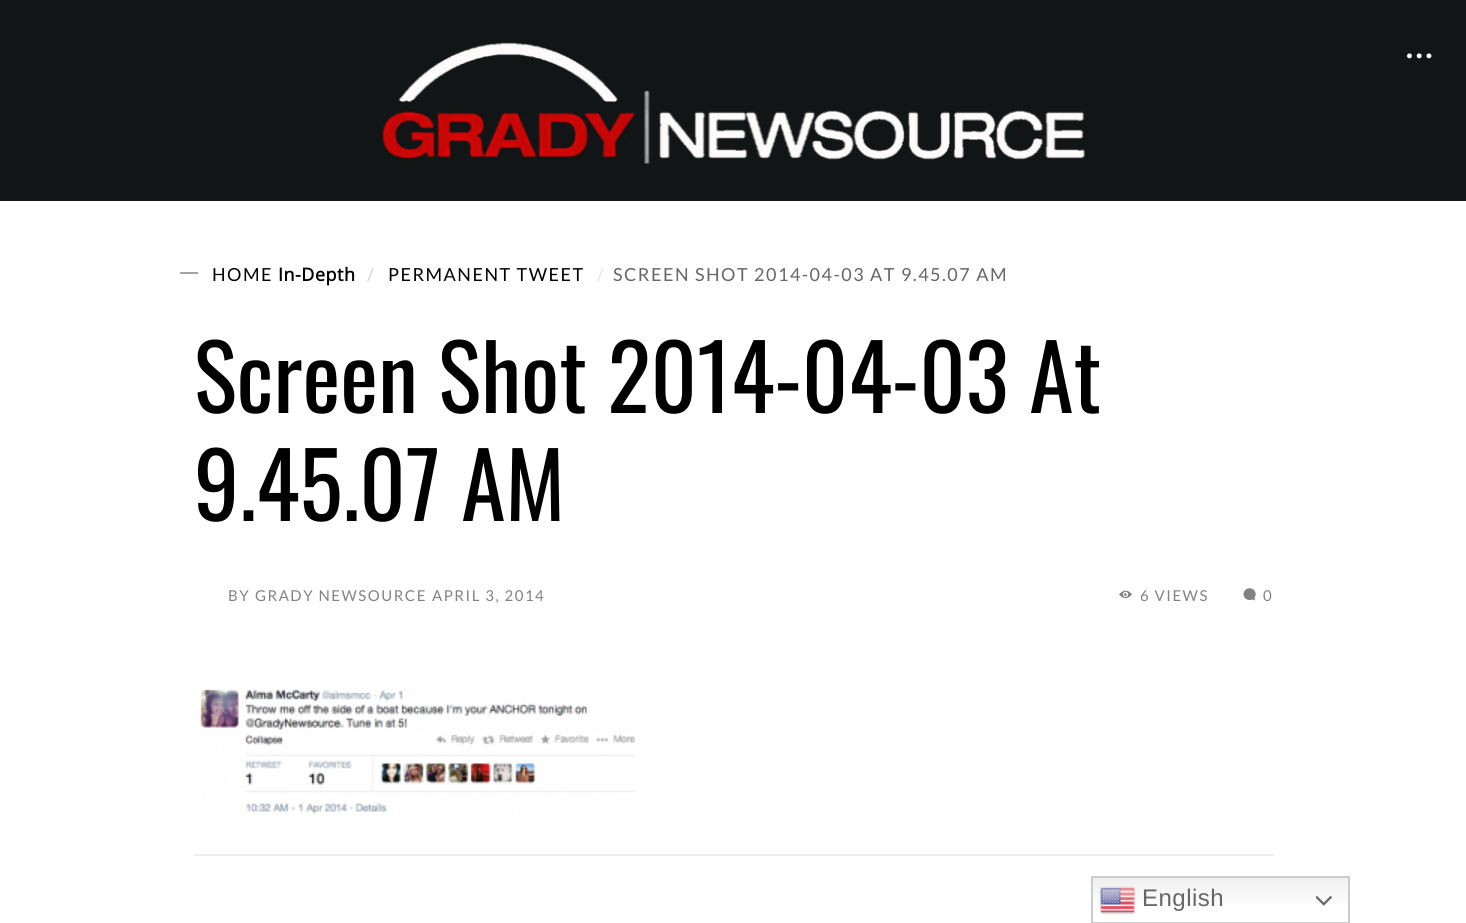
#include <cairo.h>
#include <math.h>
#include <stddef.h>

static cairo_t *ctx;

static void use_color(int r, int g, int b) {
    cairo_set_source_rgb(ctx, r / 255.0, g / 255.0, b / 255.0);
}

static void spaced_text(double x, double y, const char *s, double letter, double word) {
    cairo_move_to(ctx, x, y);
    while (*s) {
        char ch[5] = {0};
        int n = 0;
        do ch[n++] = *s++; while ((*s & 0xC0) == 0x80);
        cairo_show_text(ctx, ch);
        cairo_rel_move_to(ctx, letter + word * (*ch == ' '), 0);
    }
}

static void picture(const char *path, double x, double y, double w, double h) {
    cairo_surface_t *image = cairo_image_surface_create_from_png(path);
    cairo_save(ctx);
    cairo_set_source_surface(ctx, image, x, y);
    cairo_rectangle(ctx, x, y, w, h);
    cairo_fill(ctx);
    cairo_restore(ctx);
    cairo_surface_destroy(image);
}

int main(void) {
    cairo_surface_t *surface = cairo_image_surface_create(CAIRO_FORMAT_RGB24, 1466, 923);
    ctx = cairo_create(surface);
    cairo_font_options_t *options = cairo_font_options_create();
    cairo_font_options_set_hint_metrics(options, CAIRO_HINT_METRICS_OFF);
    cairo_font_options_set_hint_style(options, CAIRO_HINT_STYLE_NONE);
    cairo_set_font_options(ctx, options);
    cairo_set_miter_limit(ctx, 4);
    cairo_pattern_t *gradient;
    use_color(255, 255, 255);
    cairo_paint(ctx);
    use_color(18, 21, 22);
    cairo_rectangle(ctx, 0, 0, 1466, 201);
    cairo_fill(ctx);
    picture("img1.png", 381, 42, 705, 122);
    picture("img2.png", 1407, 53, 25, 6);
    use_color(164, 164, 164);
    cairo_rectangle(ctx, 180, 272, 18, 2);
    cairo_fill(ctx);
    cairo_select_font_face(ctx, "Lato", CAIRO_FONT_SLANT_NORMAL, CAIRO_FONT_WEIGHT_NORMAL);
    cairo_set_font_size(ctx, 18);
    use_color(0, 0, 0);
    spaced_text(212, 281, "HOME", 1.5, 0);
    cairo_select_font_face(ctx, "Open Sans", CAIRO_FONT_SLANT_NORMAL, CAIRO_FONT_WEIGHT_BOLD);
    spaced_text(278, 281, "In-Depth", 0.5, 0);
    cairo_select_font_face(ctx, "Lato", CAIRO_FONT_SLANT_NORMAL, CAIRO_FONT_WEIGHT_NORMAL);
    use_color(210, 210, 210);
    spaced_text(367, 281, "/", 1.5, 0);
    use_color(0, 0, 0);
    spaced_text(388, 281, "PERMANENT TWEET", 1.5, 0);
    use_color(228, 228, 228);
    spaced_text(597, 281, "/", 1.5, 0);
    use_color(102, 102, 102);
    spaced_text(613, 281, "SCREEN SHOT 2014-04-03 AT 9.45.07 AM", 1.5, 0);
    cairo_select_font_face(ctx, "Oswald", CAIRO_FONT_SLANT_NORMAL, CAIRO_FONT_WEIGHT_NORMAL);
    cairo_set_font_size(ctx, 90);
    use_color(0, 0, 0);
    cairo_move_to(ctx, 194, 413);
    cairo_show_text(ctx, "Screen Shot 2014-04-03 At");
    cairo_move_to(ctx, 194, 521);
    cairo_show_text(ctx, "9.45.07 AM");
    cairo_select_font_face(ctx, "Lato", CAIRO_FONT_SLANT_NORMAL, CAIRO_FONT_WEIGHT_NORMAL);
    cairo_set_font_size(ctx, 15);
    use_color(130, 130, 130);
    spaced_text(228, 601, "BY", 1.5, 0);
    spaced_text(255, 601, "GRADY NEWSOURCE", 1.5, 0);
    spaced_text(432, 601, "APRIL 3, 2014", 1.5, 0);
    picture("img3.png", 1119, 590, 13, 9);
    spaced_text(1140, 601, "6 VIEWS", 1.5, 0);
    picture("img4.png", 1243, 588, 13, 13);
    spaced_text(1263, 601, "0", 1.5, 0);
    picture("img5.png", 200, 689, 436, 126);
    use_color(238, 238, 238);
    cairo_rectangle(ctx, 194, 854, 1080, 2);
    cairo_fill(ctx);
    gradient = cairo_pattern_create_linear(1220, 876, 1220, 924);
    cairo_pattern_add_color_stop_rgba(gradient, 0, 0.937, 0.937, 0.937, 1);
    cairo_pattern_add_color_stop_rgba(gradient, 0.7, 1, 1, 1, 1);
    cairo_set_source(ctx, gradient);
    cairo_pattern_destroy(gradient);
    cairo_rectangle(ctx, 1093, 878, 255, 26);
    cairo_fill(ctx);
    cairo_rectangle(ctx, 1092, 877, 257, 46);
    use_color(204, 204, 204);
    cairo_stroke(ctx);
    picture("img6.png", 1099, 886, 37, 29);
    cairo_select_font_face(ctx, "Liberation Sans", CAIRO_FONT_SLANT_NORMAL, CAIRO_FONT_WEIGHT_NORMAL);
    cairo_set_font_size(ctx, 24);
    use_color(102, 102, 102);
    spaced_text(1142, 906, "English", 0.5, 0);
    picture("img7.png", 1316, 896, 16, 10);
    cairo_surface_write_to_png(surface, "result.png");
    cairo_font_options_destroy(options);
    cairo_destroy(ctx);
    cairo_surface_destroy(surface);
    return 0;
}
